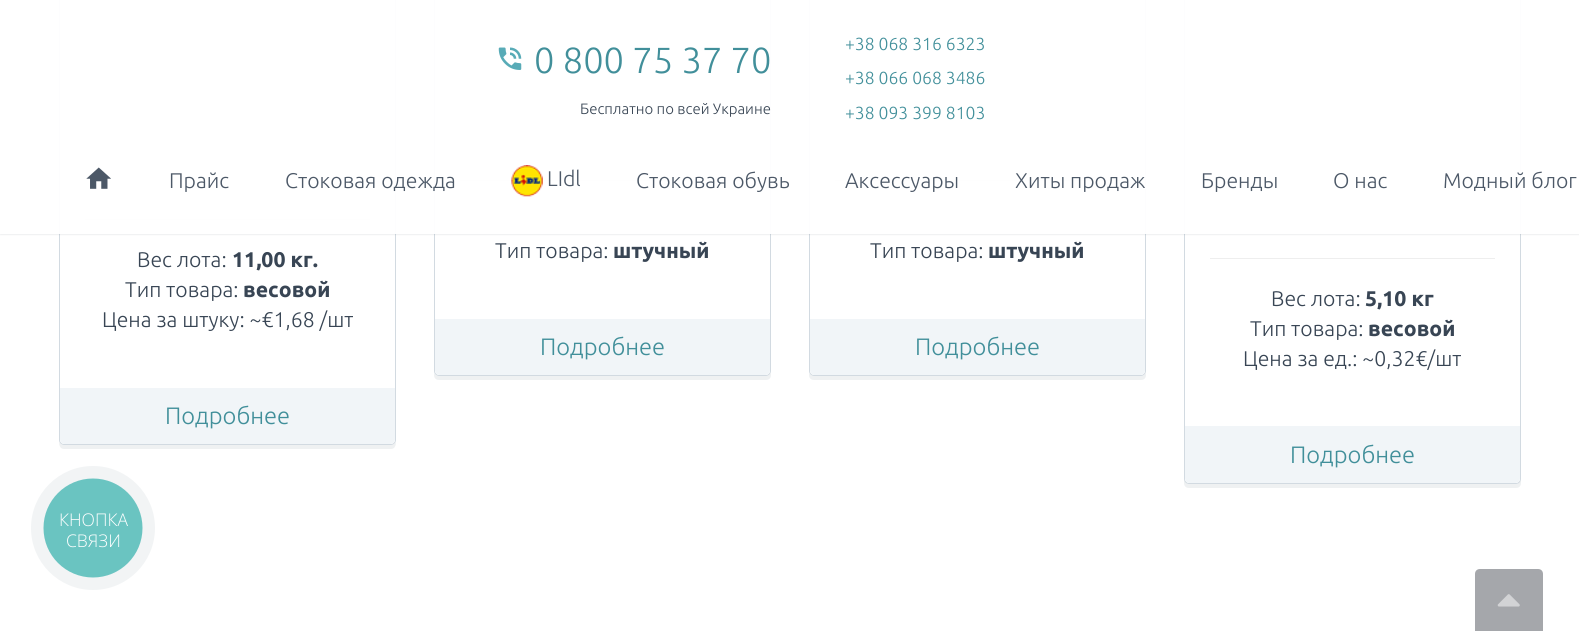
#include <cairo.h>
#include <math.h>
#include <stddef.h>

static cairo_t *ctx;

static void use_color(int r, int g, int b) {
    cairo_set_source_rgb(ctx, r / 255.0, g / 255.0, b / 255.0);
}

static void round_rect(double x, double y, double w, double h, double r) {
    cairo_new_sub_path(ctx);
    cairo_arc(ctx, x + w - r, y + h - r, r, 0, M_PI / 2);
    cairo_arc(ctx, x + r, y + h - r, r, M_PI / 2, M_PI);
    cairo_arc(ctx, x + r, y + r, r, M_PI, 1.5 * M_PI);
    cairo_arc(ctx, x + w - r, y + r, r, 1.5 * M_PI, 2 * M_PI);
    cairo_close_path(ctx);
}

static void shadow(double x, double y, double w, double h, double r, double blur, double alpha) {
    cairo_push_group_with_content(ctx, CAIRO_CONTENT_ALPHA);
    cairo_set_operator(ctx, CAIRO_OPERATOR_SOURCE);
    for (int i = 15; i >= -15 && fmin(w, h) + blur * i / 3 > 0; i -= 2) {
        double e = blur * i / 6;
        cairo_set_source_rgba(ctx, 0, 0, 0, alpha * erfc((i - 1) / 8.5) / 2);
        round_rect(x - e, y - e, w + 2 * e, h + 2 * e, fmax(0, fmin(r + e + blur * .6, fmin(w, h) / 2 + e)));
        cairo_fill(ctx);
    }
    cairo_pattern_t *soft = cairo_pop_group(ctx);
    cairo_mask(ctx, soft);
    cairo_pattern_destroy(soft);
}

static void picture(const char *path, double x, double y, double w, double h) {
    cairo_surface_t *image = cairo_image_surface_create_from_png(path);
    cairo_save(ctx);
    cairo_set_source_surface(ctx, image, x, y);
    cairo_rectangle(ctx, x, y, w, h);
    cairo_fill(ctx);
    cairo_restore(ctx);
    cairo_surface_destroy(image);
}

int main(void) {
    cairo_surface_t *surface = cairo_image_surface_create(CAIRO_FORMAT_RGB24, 1579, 631);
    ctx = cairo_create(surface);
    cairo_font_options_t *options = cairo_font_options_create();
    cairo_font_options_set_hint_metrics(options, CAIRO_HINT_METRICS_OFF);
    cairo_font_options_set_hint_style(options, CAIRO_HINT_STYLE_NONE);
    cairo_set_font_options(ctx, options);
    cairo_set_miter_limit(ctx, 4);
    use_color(255, 255, 255);
    cairo_paint(ctx);
    use_color(239, 241, 242);
    cairo_new_path(ctx);
    cairo_move_to(ctx, 59, 442);
    cairo_curve_to(ctx, 59, 445, 60, 449, 64, 449);
    cairo_line_to(ctx, 391, 449);
    cairo_curve_to(ctx, 395, 449, 396, 445, 396, 442);
    cairo_curve_to(ctx, 395, 444, 393, 445, 391, 445);
    cairo_line_to(ctx, 64, 445);
    cairo_curve_to(ctx, 62, 445, 60, 444, 59, 442);
    cairo_close_path(ctx);
    cairo_fill(ctx);
    use_color(255, 255, 255);
    round_rect(59.5, -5.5, 336, 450, 4.5);
    cairo_fill_preserve(ctx);
    use_color(210, 218, 225);
    cairo_set_line_width(ctx, 1);
    cairo_stroke(ctx);
    use_color(238, 238, 238);
    cairo_rectangle(ctx, 85, 219, 285, 1);
    cairo_fill(ctx);
    use_color(239, 241, 242);
    cairo_new_path(ctx);
    cairo_move_to(ctx, 434, 373);
    cairo_line_to(ctx, 434, 375);
    cairo_curve_to(ctx, 434, 378, 436, 380, 439, 380);
    cairo_line_to(ctx, 766, 380);
    cairo_curve_to(ctx, 769, 380, 771, 378, 771, 375);
    cairo_line_to(ctx, 771, 373);
    cairo_curve_to(ctx, 770, 375, 768, 376, 766, 376);
    cairo_line_to(ctx, 439, 376);
    cairo_curve_to(ctx, 437, 376, 435, 375, 434, 373);
    cairo_close_path(ctx);
    cairo_fill(ctx);
    use_color(255, 255, 255);
    round_rect(434.5, -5.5, 336, 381, 4.5);
    cairo_fill_preserve(ctx);
    use_color(210, 218, 225);
    cairo_stroke(ctx);
    use_color(238, 238, 238);
    cairo_rectangle(ctx, 460, 180, 285, 1);
    cairo_fill(ctx);
    use_color(239, 241, 242);
    cairo_new_path(ctx);
    cairo_move_to(ctx, 809, 373);
    cairo_line_to(ctx, 809, 375);
    cairo_curve_to(ctx, 809, 378, 811, 380, 814, 380);
    cairo_line_to(ctx, 1141, 380);
    cairo_curve_to(ctx, 1144, 380, 1146, 378, 1146, 375);
    cairo_line_to(ctx, 1146, 373);
    cairo_curve_to(ctx, 1145, 375, 1143, 376, 1141, 376);
    cairo_line_to(ctx, 814, 376);
    cairo_curve_to(ctx, 812, 376, 810, 375, 809, 373);
    cairo_close_path(ctx);
    cairo_fill(ctx);
    use_color(255, 255, 255);
    round_rect(809.5, -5.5, 336, 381, 4.5);
    cairo_fill_preserve(ctx);
    use_color(210, 218, 225);
    cairo_stroke(ctx);
    use_color(238, 238, 238);
    cairo_rectangle(ctx, 835, 180, 285, 1);
    cairo_fill(ctx);
    use_color(239, 241, 242);
    cairo_new_path(ctx);
    cairo_move_to(ctx, 1184, 480);
    cairo_line_to(ctx, 1184, 483);
    cairo_curve_to(ctx, 1184, 486, 1186, 488, 1189, 488);
    cairo_line_to(ctx, 1516, 488);
    cairo_curve_to(ctx, 1519, 488, 1521, 486, 1521, 483);
    cairo_line_to(ctx, 1521, 480);
    cairo_curve_to(ctx, 1520, 482, 1518, 484, 1516, 484);
    cairo_line_to(ctx, 1189, 484);
    cairo_curve_to(ctx, 1187, 484, 1185, 482, 1184, 480);
    cairo_close_path(ctx);
    cairo_fill(ctx);
    use_color(255, 255, 255);
    round_rect(1184.5, -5.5, 336, 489, 4.5);
    cairo_fill_preserve(ctx);
    use_color(210, 218, 225);
    cairo_stroke(ctx);
    cairo_save(ctx);
    cairo_set_fill_rule(ctx, CAIRO_FILL_RULE_EVEN_ODD);
    cairo_new_path(ctx);
    cairo_move_to(ctx, 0, 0);
    cairo_line_to(ctx, 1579, 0);
    cairo_line_to(ctx, 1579, 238);
    cairo_line_to(ctx, 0, 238);
    cairo_close_path(ctx);
    cairo_move_to(ctx, 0, 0);
    cairo_line_to(ctx, 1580, 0);
    cairo_line_to(ctx, 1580, 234);
    cairo_line_to(ctx, 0, 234);
    cairo_close_path(ctx);
    cairo_clip(ctx);
    use_color(56, 69, 84);
    shadow(0, 0, 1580, 234, 0, 1, 0.2);
    cairo_restore(ctx);
    cairo_set_source_rgba(ctx, 1, 1, 1, 0.95);
    cairo_rectangle(ctx, 0, 0, 1579, 234);
    cairo_fill(ctx);
    picture("img1.png", 498, 47, 24, 23);
    cairo_select_font_face(ctx, "Ubuntu Light", CAIRO_FONT_SLANT_NORMAL, CAIRO_FONT_WEIGHT_NORMAL);
    cairo_set_font_size(ctx, 36.25);
    use_color(65, 143, 154);
    cairo_move_to(ctx, 534, 73);
    cairo_show_text(ctx, "0 800 75 37 70");
    cairo_set_font_size(ctx, 15);
    use_color(56, 69, 84);
    cairo_move_to(ctx, 580, 114);
    cairo_show_text(ctx, "Бесплатно по всей Украине");
    cairo_set_font_size(ctx, 17.5);
    use_color(65, 143, 154);
    cairo_move_to(ctx, 845, 50);
    cairo_show_text(ctx, "+38 068 316 6323");
    cairo_move_to(ctx, 845, 84);
    cairo_show_text(ctx, "+38 066 068 3486");
    cairo_move_to(ctx, 845, 119);
    cairo_show_text(ctx, "+38 093 399 8103");
    picture("img2.png", 86, 167, 25, 22);
    cairo_set_font_size(ctx, 21.25);
    use_color(76, 88, 103);
    cairo_move_to(ctx, 169, 188);
    cairo_show_text(ctx, "Прайс");
    cairo_move_to(ctx, 285, 188);
    cairo_show_text(ctx, "Стоковая одежда");
    picture("img3.png", 511, 165, 32, 32);
    cairo_move_to(ctx, 547, 186);
    cairo_show_text(ctx, "LIdl");
    cairo_move_to(ctx, 636, 188);
    cairo_show_text(ctx, "Стоковая обувь");
    cairo_move_to(ctx, 845, 188);
    cairo_show_text(ctx, "Аксессуары");
    cairo_move_to(ctx, 1015, 188);
    cairo_show_text(ctx, "Хиты продаж");
    cairo_move_to(ctx, 1201, 188);
    cairo_show_text(ctx, "Бренды");
    cairo_move_to(ctx, 1333, 188);
    cairo_show_text(ctx, "О нас");
    cairo_move_to(ctx, 1443, 188);
    cairo_show_text(ctx, "Модный блог");
    use_color(56, 69, 84);
    cairo_move_to(ctx, 137, 267);
    cairo_show_text(ctx, "Вес лота:");
    cairo_select_font_face(ctx, "Ubuntu", CAIRO_FONT_SLANT_NORMAL, CAIRO_FONT_WEIGHT_BOLD);
    cairo_move_to(ctx, 232, 267);
    cairo_show_text(ctx, "11,00 кг.");
    cairo_select_font_face(ctx, "Ubuntu Light", CAIRO_FONT_SLANT_NORMAL, CAIRO_FONT_WEIGHT_NORMAL);
    cairo_move_to(ctx, 125, 297);
    cairo_show_text(ctx, "Тип товара:");
    cairo_select_font_face(ctx, "Ubuntu", CAIRO_FONT_SLANT_NORMAL, CAIRO_FONT_WEIGHT_BOLD);
    cairo_move_to(ctx, 243, 297);
    cairo_show_text(ctx, "весовой");
    cairo_select_font_face(ctx, "Ubuntu Light", CAIRO_FONT_SLANT_NORMAL, CAIRO_FONT_WEIGHT_NORMAL);
    cairo_move_to(ctx, 102, 327);
    cairo_show_text(ctx, "Цена за штуку: ~€1,68 /шт");
    use_color(241, 245, 248);
    cairo_new_path(ctx);
    cairo_move_to(ctx, 60, 388);
    cairo_line_to(ctx, 395, 388);
    cairo_line_to(ctx, 395, 439);
    cairo_curve_to(ctx, 395, 442, 393, 444, 390, 444);
    cairo_line_to(ctx, 65, 444);
    cairo_curve_to(ctx, 62, 444, 60, 442, 60, 439);
    cairo_close_path(ctx);
    cairo_fill(ctx);
    cairo_set_font_size(ctx, 23.75);
    use_color(65, 143, 154);
    cairo_move_to(ctx, 165, 424);
    cairo_show_text(ctx, "Подробнее");
    cairo_set_font_size(ctx, 21.25);
    use_color(56, 69, 84);
    cairo_move_to(ctx, 495, 258);
    cairo_show_text(ctx, "Тип товара:");
    cairo_select_font_face(ctx, "Ubuntu", CAIRO_FONT_SLANT_NORMAL, CAIRO_FONT_WEIGHT_BOLD);
    cairo_move_to(ctx, 613, 258);
    cairo_show_text(ctx, "штучный");
    use_color(241, 245, 248);
    cairo_new_path(ctx);
    cairo_move_to(ctx, 435, 319);
    cairo_line_to(ctx, 770, 319);
    cairo_line_to(ctx, 770, 370);
    cairo_curve_to(ctx, 770, 373, 768, 375, 765, 375);
    cairo_line_to(ctx, 440, 375);
    cairo_curve_to(ctx, 437, 375, 435, 373, 435, 370);
    cairo_close_path(ctx);
    cairo_fill(ctx);
    cairo_select_font_face(ctx, "Ubuntu Light", CAIRO_FONT_SLANT_NORMAL, CAIRO_FONT_WEIGHT_NORMAL);
    cairo_set_font_size(ctx, 23.75);
    use_color(65, 143, 154);
    cairo_move_to(ctx, 540, 355);
    cairo_show_text(ctx, "Подробнее");
    cairo_set_font_size(ctx, 21.25);
    use_color(56, 69, 84);
    cairo_move_to(ctx, 870, 258);
    cairo_show_text(ctx, "Тип товара:");
    cairo_select_font_face(ctx, "Ubuntu", CAIRO_FONT_SLANT_NORMAL, CAIRO_FONT_WEIGHT_BOLD);
    cairo_move_to(ctx, 988, 258);
    cairo_show_text(ctx, "штучный");
    use_color(241, 245, 248);
    cairo_new_path(ctx);
    cairo_move_to(ctx, 810, 319);
    cairo_line_to(ctx, 1145, 319);
    cairo_line_to(ctx, 1145, 370);
    cairo_curve_to(ctx, 1145, 373, 1143, 375, 1140, 375);
    cairo_line_to(ctx, 815, 375);
    cairo_curve_to(ctx, 812, 375, 810, 373, 810, 370);
    cairo_close_path(ctx);
    cairo_fill(ctx);
    cairo_select_font_face(ctx, "Ubuntu Light", CAIRO_FONT_SLANT_NORMAL, CAIRO_FONT_WEIGHT_NORMAL);
    cairo_set_font_size(ctx, 23.75);
    use_color(65, 143, 154);
    cairo_move_to(ctx, 915, 355);
    cairo_show_text(ctx, "Подробнее");
    use_color(238, 238, 238);
    cairo_rectangle(ctx, 1210, 258, 285, 1);
    cairo_fill(ctx);
    cairo_set_font_size(ctx, 21.25);
    use_color(56, 69, 84);
    cairo_move_to(ctx, 1271, 306);
    cairo_show_text(ctx, "Вес лота:");
    cairo_select_font_face(ctx, "Ubuntu", CAIRO_FONT_SLANT_NORMAL, CAIRO_FONT_WEIGHT_BOLD);
    cairo_move_to(ctx, 1365, 306);
    cairo_show_text(ctx, "5,10 кг");
    cairo_select_font_face(ctx, "Ubuntu Light", CAIRO_FONT_SLANT_NORMAL, CAIRO_FONT_WEIGHT_NORMAL);
    cairo_move_to(ctx, 1250, 336);
    cairo_show_text(ctx, "Тип товара:");
    cairo_select_font_face(ctx, "Ubuntu", CAIRO_FONT_SLANT_NORMAL, CAIRO_FONT_WEIGHT_BOLD);
    cairo_move_to(ctx, 1368, 336);
    cairo_show_text(ctx, "весовой");
    cairo_select_font_face(ctx, "Ubuntu Light", CAIRO_FONT_SLANT_NORMAL, CAIRO_FONT_WEIGHT_NORMAL);
    cairo_move_to(ctx, 1243, 366);
    cairo_show_text(ctx, "Цена за ед.: ~0,32€/шт");
    use_color(241, 245, 248);
    cairo_new_path(ctx);
    cairo_move_to(ctx, 1185, 426);
    cairo_line_to(ctx, 1520, 426);
    cairo_line_to(ctx, 1520, 478);
    cairo_curve_to(ctx, 1520, 481, 1518, 483, 1515, 483);
    cairo_line_to(ctx, 1190, 483);
    cairo_curve_to(ctx, 1187, 483, 1185, 481, 1185, 478);
    cairo_close_path(ctx);
    cairo_fill(ctx);
    cairo_set_font_size(ctx, 23.75);
    use_color(65, 143, 154);
    cairo_move_to(ctx, 1290, 463);
    cairo_show_text(ctx, "Подробнее");
    use_color(165, 167, 171);
    cairo_new_path(ctx);
    cairo_move_to(ctx, 1480, 569);
    cairo_line_to(ctx, 1538, 569);
    cairo_curve_to(ctx, 1541, 569, 1543, 571, 1543, 574);
    cairo_line_to(ctx, 1543, 631);
    cairo_line_to(ctx, 1475, 631);
    cairo_line_to(ctx, 1475, 574);
    cairo_curve_to(ctx, 1475, 571, 1477, 569, 1480, 569);
    cairo_close_path(ctx);
    cairo_fill(ctx);
    picture("img4.png", 1497, 594, 23, 13);
    use_color(242, 244, 245);
    cairo_arc(ctx, 93, 528, 62, 0, 2 * M_PI);
    cairo_fill(ctx);
    use_color(106, 196, 193);
    cairo_arc(ctx, 93, 528, 49.5, 0, 2 * M_PI);
    cairo_fill(ctx);
    cairo_select_font_face(ctx, "Open Sans Light", CAIRO_FONT_SLANT_NORMAL, CAIRO_FONT_WEIGHT_NORMAL);
    cairo_set_font_size(ctx, 17.5);
    use_color(255, 255, 255);
    cairo_move_to(ctx, 59, 526);
    cairo_show_text(ctx, "КНОПКА");
    cairo_move_to(ctx, 66, 547);
    cairo_show_text(ctx, "СВЯЗИ");
    cairo_surface_write_to_png(surface, "result.png");
    cairo_font_options_destroy(options);
    cairo_destroy(ctx);
    cairo_surface_destroy(surface);
    return 0;
}
